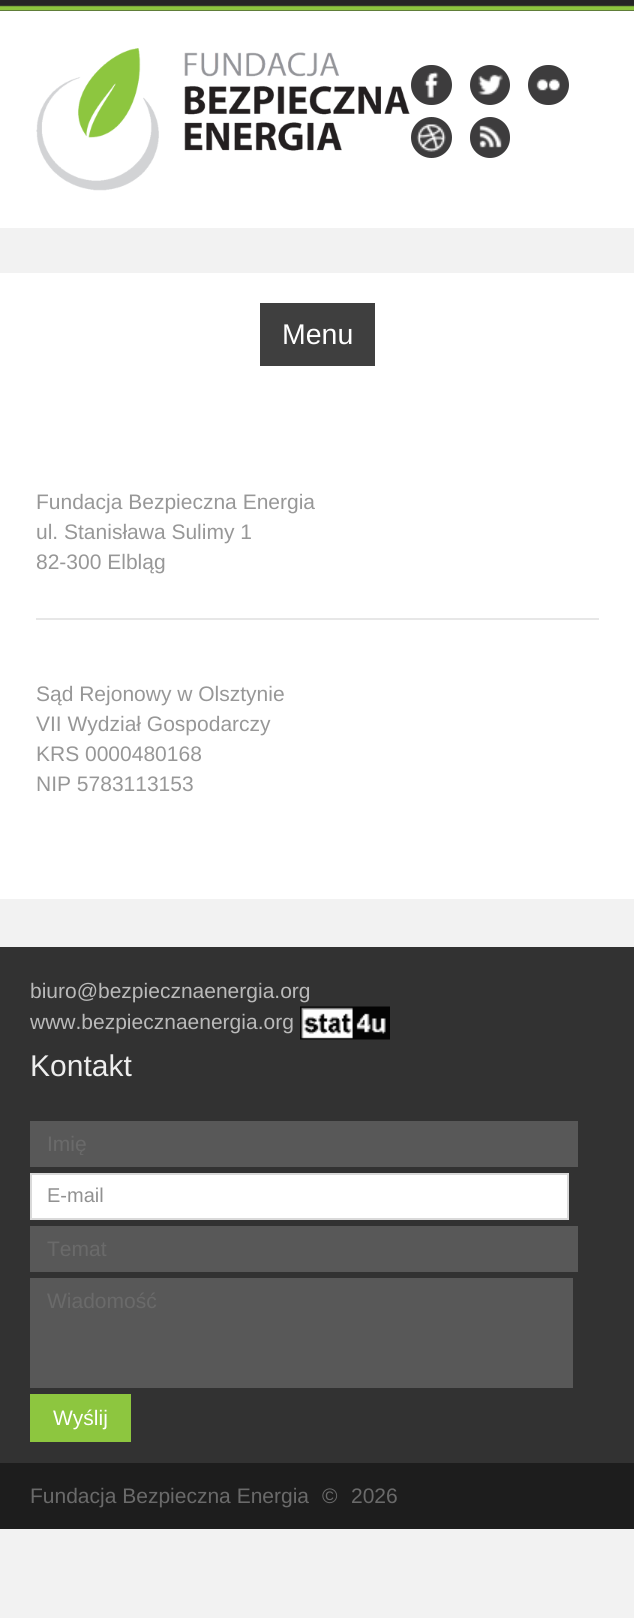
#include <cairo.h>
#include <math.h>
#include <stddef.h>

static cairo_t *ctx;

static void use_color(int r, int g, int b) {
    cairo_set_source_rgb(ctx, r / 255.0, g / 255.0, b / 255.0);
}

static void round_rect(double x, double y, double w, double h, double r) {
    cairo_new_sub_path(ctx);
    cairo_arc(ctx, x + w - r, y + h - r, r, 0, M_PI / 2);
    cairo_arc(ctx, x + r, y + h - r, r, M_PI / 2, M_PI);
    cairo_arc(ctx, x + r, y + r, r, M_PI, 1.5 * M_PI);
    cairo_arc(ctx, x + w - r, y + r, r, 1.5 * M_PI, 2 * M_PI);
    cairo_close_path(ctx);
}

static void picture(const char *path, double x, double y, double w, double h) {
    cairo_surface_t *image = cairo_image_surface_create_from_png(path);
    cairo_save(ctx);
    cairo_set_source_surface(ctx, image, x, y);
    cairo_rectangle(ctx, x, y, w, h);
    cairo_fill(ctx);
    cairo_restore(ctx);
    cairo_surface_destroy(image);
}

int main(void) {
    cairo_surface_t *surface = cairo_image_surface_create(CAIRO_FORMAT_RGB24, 634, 1618);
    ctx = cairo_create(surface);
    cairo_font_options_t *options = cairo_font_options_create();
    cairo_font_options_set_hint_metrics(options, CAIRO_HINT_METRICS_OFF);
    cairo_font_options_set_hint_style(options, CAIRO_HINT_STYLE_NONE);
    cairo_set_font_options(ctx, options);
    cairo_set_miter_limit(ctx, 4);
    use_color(242, 242, 242);
    cairo_paint(ctx);
    picture("img1.png", 0, 0, 634, 11);
    use_color(255, 255, 255);
    cairo_rectangle(ctx, 0, 11, 634, 217);
    cairo_fill(ctx);
    picture("img2.png", 36, 48, 374, 143);
    use_color(61, 60, 61);
    round_rect(411, 65, 41, 40, 20);
    cairo_fill(ctx);
    picture("img3.png", 424, 71, 15, 27);
    cairo_arc(ctx, 490, 85, 20, 0, 2 * M_PI);
    cairo_fill(ctx);
    picture("img4.png", 478, 74, 25, 21);
    round_rect(528, 65, 41, 40, 20);
    cairo_fill(ctx);
    picture("img5.png", 536, 79, 24, 12);
    cairo_arc(ctx, 431.5, 137.5, 20.5, 0, 2 * M_PI);
    cairo_fill(ctx);
    picture("img6.png", 416, 124, 30, 28);
    round_rect(470, 117, 40, 41, 20);
    cairo_fill(ctx);
    picture("img7.png", 479, 125, 23, 23);
    use_color(255, 255, 255);
    cairo_rectangle(ctx, 0, 273, 634, 626);
    cairo_fill(ctx);
    use_color(63, 63, 63);
    cairo_rectangle(ctx, 260, 303, 115, 63);
    cairo_fill(ctx);
    cairo_select_font_face(ctx, "Liberation Sans", CAIRO_FONT_SLANT_NORMAL, CAIRO_FONT_WEIGHT_NORMAL);
    cairo_set_font_size(ctx, 28.5);
    use_color(255, 255, 255);
    cairo_move_to(ctx, 282, 344);
    cairo_show_text(ctx, "Menu");
    use_color(231, 231, 231);
    cairo_rectangle(ctx, 36, 618, 563, 2);
    cairo_fill(ctx);
    cairo_set_font_size(ctx, 21);
    use_color(151, 151, 151);
    cairo_move_to(ctx, 36, 509);
    cairo_show_text(ctx, "Fundacja Bezpieczna Energia");
    cairo_move_to(ctx, 36, 539);
    cairo_show_text(ctx, "ul. Stanisława Sulimy 1");
    cairo_move_to(ctx, 36, 569);
    cairo_show_text(ctx, "82-300 Elbląg");
    cairo_move_to(ctx, 36, 701);
    cairo_show_text(ctx, "Sąd Rejonowy w Olsztynie");
    cairo_move_to(ctx, 36, 731);
    cairo_show_text(ctx, "VII Wydział Gospodarczy");
    cairo_move_to(ctx, 36, 761);
    cairo_show_text(ctx, "KRS 0000480168");
    cairo_move_to(ctx, 36, 791);
    cairo_show_text(ctx, "NIP 5783113153");
    use_color(29, 29, 29);
    cairo_rectangle(ctx, 0, 1463, 634, 66);
    cairo_fill(ctx);
    use_color(50, 50, 50);
    cairo_rectangle(ctx, 0, 947, 634, 516);
    cairo_fill(ctx);
    use_color(186, 186, 186);
    cairo_move_to(ctx, 30, 998);
    cairo_show_text(ctx, "biuro@bezpiecznaenergia.org");
    cairo_move_to(ctx, 30, 1029);
    cairo_show_text(ctx, "www.bezpiecznaenergia.org");
    picture("img8.png", 300, 1006, 90, 34);
    cairo_set_font_size(ctx, 30);
    use_color(237, 237, 237);
    cairo_move_to(ctx, 30, 1076);
    cairo_show_text(ctx, "Kontakt");
    use_color(88, 88, 88);
    cairo_rectangle(ctx, 30, 1121, 548, 46);
    cairo_fill(ctx);
    cairo_save(ctx);
    cairo_rectangle(ctx, 47, 1131, 514, 24);
    cairo_clip(ctx);
    cairo_set_font_size(ctx, 21);
    use_color(106, 106, 106);
    cairo_move_to(ctx, 47, 1151);
    cairo_show_text(ctx, "Imię");
    cairo_restore(ctx);
    use_color(255, 255, 255);
    cairo_rectangle(ctx, 31, 1174, 537, 45);
    cairo_fill_preserve(ctx);
    use_color(217, 217, 217);
    cairo_stroke(ctx);
    cairo_set_font_size(ctx, 20);
    use_color(145, 145, 145);
    cairo_move_to(ctx, 47, 1202);
    cairo_show_text(ctx, "E-mail");
    use_color(88, 88, 88);
    cairo_rectangle(ctx, 30, 1226, 548, 46);
    cairo_fill(ctx);
    cairo_set_font_size(ctx, 21);
    use_color(106, 106, 106);
    cairo_move_to(ctx, 47, 1256);
    cairo_show_text(ctx, "Temat");
    use_color(88, 88, 88);
    cairo_rectangle(ctx, 30, 1278, 543, 110);
    cairo_fill(ctx);
    use_color(106, 106, 106);
    cairo_move_to(ctx, 47, 1308);
    cairo_show_text(ctx, "Wiadomość");
    use_color(141, 198, 63);
    cairo_rectangle(ctx, 30, 1394, 101, 48);
    cairo_fill(ctx);
    use_color(255, 255, 255);
    cairo_move_to(ctx, 53, 1425);
    cairo_show_text(ctx, "Wyślij");
    use_color(106, 106, 106);
    cairo_move_to(ctx, 30, 1503);
    cairo_show_text(ctx, "Fundacja Bezpieczna Energia");
    cairo_move_to(ctx, 322, 1503);
    cairo_show_text(ctx, "©");
    cairo_move_to(ctx, 351, 1503);
    cairo_show_text(ctx, "2026");
    cairo_surface_write_to_png(surface, "result.png");
    cairo_font_options_destroy(options);
    cairo_destroy(ctx);
    cairo_surface_destroy(surface);
    return 0;
}
